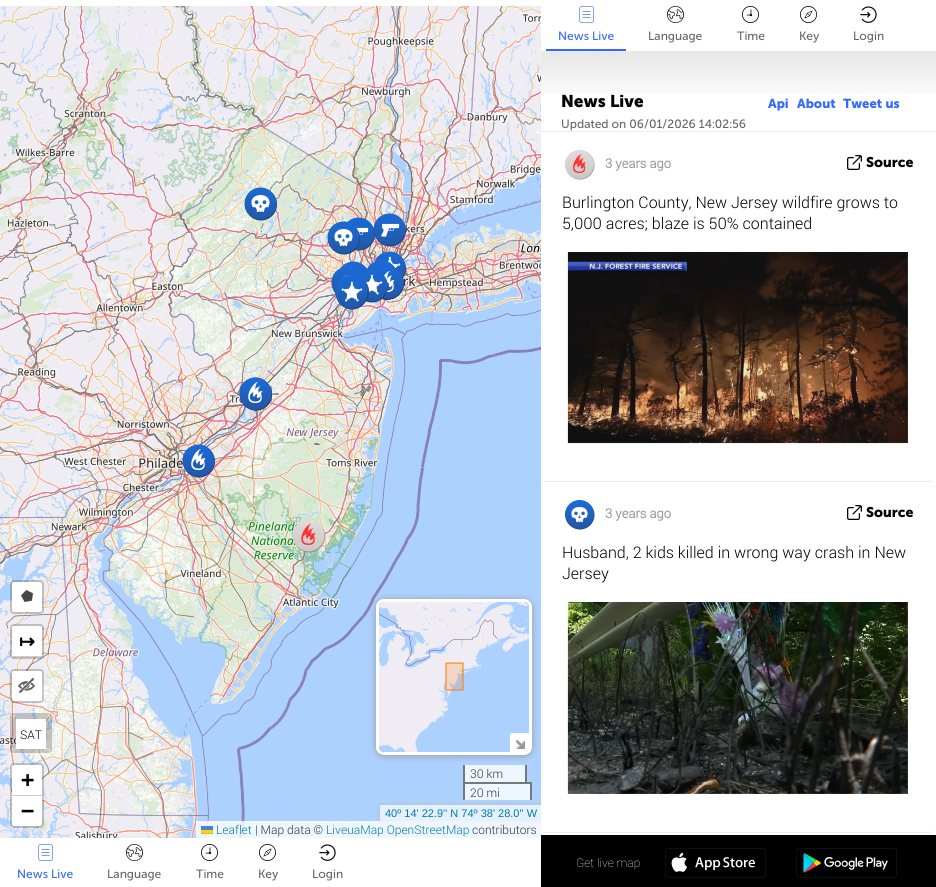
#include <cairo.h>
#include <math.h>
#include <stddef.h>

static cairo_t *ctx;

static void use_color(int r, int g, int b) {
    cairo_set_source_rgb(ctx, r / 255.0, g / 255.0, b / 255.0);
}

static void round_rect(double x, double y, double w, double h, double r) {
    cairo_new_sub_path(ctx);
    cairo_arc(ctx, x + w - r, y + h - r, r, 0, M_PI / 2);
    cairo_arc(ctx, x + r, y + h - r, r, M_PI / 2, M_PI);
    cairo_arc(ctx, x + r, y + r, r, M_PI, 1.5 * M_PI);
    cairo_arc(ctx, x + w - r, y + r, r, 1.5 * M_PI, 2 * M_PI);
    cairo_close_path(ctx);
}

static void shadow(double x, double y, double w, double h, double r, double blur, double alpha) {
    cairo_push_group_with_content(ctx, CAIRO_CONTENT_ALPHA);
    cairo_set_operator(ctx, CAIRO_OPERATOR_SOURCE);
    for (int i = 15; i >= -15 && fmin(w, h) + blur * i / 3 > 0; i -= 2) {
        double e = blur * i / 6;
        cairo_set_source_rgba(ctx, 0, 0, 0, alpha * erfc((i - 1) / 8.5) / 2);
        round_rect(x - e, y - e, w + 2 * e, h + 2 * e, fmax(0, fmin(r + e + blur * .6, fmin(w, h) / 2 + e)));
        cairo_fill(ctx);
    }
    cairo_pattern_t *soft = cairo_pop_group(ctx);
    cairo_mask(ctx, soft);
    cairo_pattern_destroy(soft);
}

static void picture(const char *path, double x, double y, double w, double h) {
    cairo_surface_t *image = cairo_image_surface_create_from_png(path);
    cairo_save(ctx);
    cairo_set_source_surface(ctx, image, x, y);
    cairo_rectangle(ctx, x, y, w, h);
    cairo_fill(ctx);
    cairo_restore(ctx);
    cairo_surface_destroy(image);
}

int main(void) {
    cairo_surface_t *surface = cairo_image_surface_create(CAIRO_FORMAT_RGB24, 936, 887);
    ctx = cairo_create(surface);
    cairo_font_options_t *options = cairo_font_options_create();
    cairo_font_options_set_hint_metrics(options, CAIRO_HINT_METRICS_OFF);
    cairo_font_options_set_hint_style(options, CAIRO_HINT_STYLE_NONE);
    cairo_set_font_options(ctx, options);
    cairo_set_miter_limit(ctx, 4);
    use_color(255, 255, 255);
    cairo_paint(ctx);
    picture("img1.png", 0, 6, 35, 211);
    picture("img2.png", 35, 6, 256, 211);
    picture("img3.png", 291, 6, 250, 211);
    picture("img4.png", 0, 217, 35, 256);
    picture("img5.png", 35, 217, 256, 256);
    picture("img6.png", 291, 217, 250, 256);
    picture("img7.png", 0, 473, 35, 256);
    picture("img8.png", 35, 473, 256, 256);
    picture("img9.png", 291, 473, 250, 256);
    picture("img10.png", 0, 729, 35, 109);
    picture("img11.png", 35, 729, 256, 109);
    use_color(172, 209, 255);
    cairo_rectangle(ctx, 291, 729, 250, 109);
    cairo_fill(ctx);
    use_color(238, 246, 255);
    cairo_rectangle(ctx, 465, 784, 65, 16);
    cairo_fill(ctx);
    picture("img12.png", 244, 187, 33, 34);
    picture("img15.png", 373, 213, 33, 34);
    picture("img14.png", 347, 217, 28, 34);
    picture("img13.png", 327, 221, 33, 34);
    picture("img16.png", 374, 251, 32, 27);
    picture("img18.png", 367, 260, 29, 10);
    picture("img20.png", 367, 262, 29, 9);
    picture("img17.png", 340, 261, 28, 10);
    picture("img19.png", 343, 265, 24, 7);
    picture("img21.png", 331, 267, 27, 27);
    picture("img22.png", 375, 266, 26, 34);
    picture("img23.png", 375, 267, 26, 33);
    picture("img26.png", 376, 267, 28, 33);
    picture("img24.png", 375, 267, 26, 33);
    picture("img25.png", 375, 267, 26, 33);
    picture("img33.png", 363, 271, 2, 1);
    picture("img30.png", 339, 270, 26, 3);
    picture("img31.png", 339, 271, 26, 2);
    picture("img32.png", 339, 271, 26, 2);
    picture("img27.png", 335, 269, 28, 21);
    picture("img29.png", 376, 268, 28, 32);
    picture("img34.png", 336, 272, 27, 17);
    picture("img28.png", 358, 269, 30, 34);
    picture("img35.png", 336, 274, 33, 29);
    picture("img36.png", 335, 279, 33, 31);
    picture("img41.png", 270, 386, 9, 16);
    picture("img37.png", 239, 377, 33, 34);
    picture("img38.png", 239, 377, 33, 34);
    picture("img39.png", 182, 444, 33, 34);
    picture("img40.png", 292, 519, 33, 34);
    round_rect(11, 581, 32, 32, 3);
    cairo_set_source_rgba(ctx, 0, 0, 0, 0.2);
    cairo_stroke(ctx);
    use_color(255, 255, 255);
    round_rect(12, 582, 30, 30, 2);
    cairo_fill(ctx);
    picture("img42.png", 21, 590, 12, 12);
    round_rect(11, 625, 32, 33, 3);
    cairo_set_source_rgba(ctx, 0, 0, 0, 0.2);
    cairo_stroke(ctx);
    use_color(255, 255, 255);
    cairo_new_path(ctx);
    cairo_move_to(ctx, 14, 626);
    cairo_line_to(ctx, 40, 626);
    cairo_curve_to(ctx, 41, 626, 42, 627, 42, 628);
    cairo_line_to(ctx, 42, 657);
    cairo_line_to(ctx, 12, 657);
    cairo_line_to(ctx, 12, 628);
    cairo_curve_to(ctx, 12, 627, 13, 626, 14, 626);
    cairo_close_path(ctx);
    cairo_fill(ctx);
    use_color(204, 204, 204);
    cairo_rectangle(ctx, 12, 656, 30, 1);
    cairo_fill(ctx);
    cairo_select_font_face(ctx, "DejaVu Sans", CAIRO_FONT_SLANT_NORMAL, CAIRO_FONT_WEIGHT_BOLD);
    cairo_set_font_size(ctx, 19);
    use_color(0, 0, 0);
    cairo_move_to(ctx, 19, 648);
    cairo_show_text(ctx, "↦");
    round_rect(11, 670, 32, 32, 3);
    cairo_set_source_rgba(ctx, 0, 0, 0, 0.2);
    cairo_stroke(ctx);
    use_color(255, 255, 255);
    round_rect(12, 671, 30, 30, 2);
    cairo_fill(ctx);
    picture("img43.png", 18, 678, 17, 15);
    round_rect(11, 714, 40, 38, 3);
    cairo_set_source_rgba(ctx, 0, 0, 0, 0.2);
    cairo_stroke(ctx);
    round_rect(13, 716, 36, 34, 3);
    cairo_stroke(ctx);
    use_color(255, 255, 255);
    cairo_new_path(ctx);
    cairo_move_to(ctx, 16, 719);
    cairo_line_to(ctx, 46, 719);
    cairo_line_to(ctx, 46, 749);
    cairo_line_to(ctx, 16, 749);
    cairo_line_to(ctx, 16, 747);
    cairo_close_path(ctx);
    cairo_fill(ctx);
    cairo_set_source_rgba(ctx, 0, 0, 0, 0.2);
    cairo_rectangle(ctx, 15, 717, 32, 2);
    cairo_fill(ctx);
    cairo_rectangle(ctx, 46, 718, 2, 30);
    cairo_fill(ctx);
    cairo_rectangle(ctx, 14, 718, 2, 30);
    cairo_fill(ctx);
    cairo_select_font_face(ctx, "Roboto Light", CAIRO_FONT_SLANT_NORMAL, CAIRO_FONT_WEIGHT_NORMAL);
    cairo_set_font_size(ctx, 12);
    use_color(0, 0, 0);
    cairo_move_to(ctx, 20, 739);
    cairo_show_text(ctx, "SAT");
    round_rect(11, 764, 32, 63, 3);
    cairo_set_source_rgba(ctx, 0, 0, 0, 0.2);
    cairo_stroke(ctx);
    use_color(255, 255, 255);
    cairo_new_path(ctx);
    cairo_move_to(ctx, 14, 765);
    cairo_line_to(ctx, 40, 765);
    cairo_curve_to(ctx, 41, 765, 42, 766, 42, 767);
    cairo_line_to(ctx, 42, 796);
    cairo_line_to(ctx, 12, 796);
    cairo_line_to(ctx, 12, 767);
    cairo_curve_to(ctx, 12, 766, 13, 765, 14, 765);
    cairo_close_path(ctx);
    cairo_fill(ctx);
    use_color(204, 204, 204);
    cairo_rectangle(ctx, 12, 795, 30, 1);
    cairo_fill(ctx);
    cairo_select_font_face(ctx, "DejaVu Sans Mono", CAIRO_FONT_SLANT_NORMAL, CAIRO_FONT_WEIGHT_BOLD);
    cairo_set_font_size(ctx, 22);
    use_color(0, 0, 0);
    cairo_move_to(ctx, 21, 787);
    cairo_show_text(ctx, "+");
    use_color(255, 255, 255);
    cairo_new_path(ctx);
    cairo_move_to(ctx, 12, 796);
    cairo_line_to(ctx, 42, 796);
    cairo_line_to(ctx, 42, 824);
    cairo_curve_to(ctx, 42, 825, 41, 826, 40, 826);
    cairo_line_to(ctx, 14, 826);
    cairo_curve_to(ctx, 13, 826, 12, 825, 12, 824);
    cairo_close_path(ctx);
    cairo_fill(ctx);
    use_color(0, 0, 0);
    cairo_move_to(ctx, 21, 818);
    cairo_show_text(ctx, "−");
    use_color(153, 153, 153);
    shadow(376, 600, 156, 156, 8, 3.5, 1);
    round_rect(377.5, 600.5, 153, 153, 6.5);
    use_color(255, 255, 255);
    cairo_set_line_width(ctx, 3);
    cairo_stroke(ctx);
    picture("img44.png", 379, 602, 150, 69);
    picture("img45.png", 379, 671, 150, 81);
    cairo_set_source_rgba(ctx, 1, 0.471, 0, 0.2);
    cairo_rectangle(ctx, 446, 663, 17, 27);
    cairo_fill(ctx);
    cairo_new_path(ctx);
    cairo_move_to(ctx, 446, 690);
    cairo_line_to(ctx, 446, 663);
    cairo_line_to(ctx, 463, 663);
    cairo_line_to(ctx, 463, 690);
    cairo_close_path(ctx);
    use_color(255, 120, 0);
    cairo_set_line_width(ctx, 1);
    cairo_set_line_cap(ctx, CAIRO_LINE_CAP_ROUND);
    cairo_set_line_join(ctx, CAIRO_LINE_JOIN_ROUND);
    cairo_stroke(ctx);
    use_color(255, 255, 255);
    cairo_new_path(ctx);
    cairo_move_to(ctx, 512, 733);
    cairo_line_to(ctx, 529, 733);
    cairo_line_to(ctx, 529, 747);
    cairo_curve_to(ctx, 529, 750, 527, 752, 524, 752);
    cairo_line_to(ctx, 510, 752);
    cairo_line_to(ctx, 510, 735);
    cairo_curve_to(ctx, 510, 734, 511, 733, 512, 733);
    cairo_close_path(ctx);
    cairo_fill(ctx);
    picture("img46.png", 516, 739, 9, 10);
    use_color(238, 246, 255);
    cairo_rectangle(ctx, 465, 765, 60, 17);
    cairo_fill(ctx);
    use_color(119, 119, 119);
    cairo_rectangle(ctx, 525, 765, 2, 19);
    cairo_fill(ctx);
    cairo_rectangle(ctx, 463, 765, 2, 19);
    cairo_fill(ctx);
    cairo_select_font_face(ctx, "Roboto Light", CAIRO_FONT_SLANT_NORMAL, CAIRO_FONT_WEIGHT_NORMAL);
    cairo_set_font_size(ctx, 12);
    use_color(51, 51, 51);
    cairo_move_to(ctx, 470, 778);
    cairo_show_text(ctx, "30 km");
    use_color(119, 119, 119);
    cairo_rectangle(ctx, 463, 782, 69, 2);
    cairo_fill(ctx);
    cairo_rectangle(ctx, 530, 782, 2, 18);
    cairo_fill(ctx);
    cairo_rectangle(ctx, 463, 782, 2, 18);
    cairo_fill(ctx);
    use_color(51, 51, 51);
    cairo_move_to(ctx, 470, 797);
    cairo_show_text(ctx, "20 mi");
    use_color(187, 187, 187);
    shadow(380, 805, 162, 16, 0, 2.5, 1);
    use_color(230, 241, 255);
    cairo_rectangle(ctx, 380, 805, 161, 16);
    cairo_fill(ctx);
    cairo_select_font_face(ctx, "Liberation Sans", CAIRO_FONT_SLANT_NORMAL, CAIRO_FONT_WEIGHT_NORMAL);
    cairo_set_font_size(ctx, 11);
    use_color(0, 120, 168);
    cairo_move_to(ctx, 385, 817);
    cairo_show_text(ctx, "40º 14' 22.9'' N 74º 38' 28.0'' W");
    cairo_set_source_rgba(ctx, 1, 1, 1, 0.8);
    cairo_rectangle(ctx, 196, 821, 345, 17);
    cairo_fill(ctx);
    cairo_select_font_face(ctx, "Roboto Light", CAIRO_FONT_SLANT_NORMAL, CAIRO_FONT_WEIGHT_NORMAL);
    cairo_set_font_size(ctx, 12);
    use_color(0, 120, 168);
    cairo_move_to(ctx, 216, 834);
    cairo_show_text(ctx, "Leaflet");
    use_color(76, 123, 225);
    cairo_rectangle(ctx, 201, 826, 12, 4);
    cairo_fill(ctx);
    use_color(255, 213, 0);
    cairo_rectangle(ctx, 201, 830, 12, 3);
    cairo_fill(ctx);
    use_color(224, 188, 0);
    cairo_rectangle(ctx, 201, 833, 12, 1);
    cairo_fill(ctx);
    use_color(51, 51, 51);
    cairo_move_to(ctx, 255, 834);
    cairo_show_text(ctx, "| Map data ©");
    use_color(0, 120, 168);
    cairo_move_to(ctx, 326, 834);
    cairo_show_text(ctx, "LiveuaMap OpenStreetMap");
    use_color(51, 51, 51);
    cairo_move_to(ctx, 472, 834);
    cairo_show_text(ctx, "contributors");
    use_color(255, 255, 255);
    cairo_rectangle(ctx, 541, 801, 5, 24);
    cairo_fill(ctx);
    use_color(52, 106, 254);
    cairo_rectangle(ctx, 546, 49, 80, 2);
    cairo_fill(ctx);
    picture("img47.png", 579, 6, 15, 17);
    cairo_select_font_face(ctx, "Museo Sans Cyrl", CAIRO_FONT_SLANT_NORMAL, CAIRO_FONT_WEIGHT_NORMAL);
    cairo_move_to(ctx, 558, 40);
    cairo_show_text(ctx, "News Live");
    picture("img48.png", 667, 6, 17, 17);
    use_color(102, 102, 102);
    cairo_move_to(ctx, 648, 40);
    cairo_show_text(ctx, "Language");
    picture("img49.png", 742, 6, 17, 17);
    cairo_move_to(ctx, 737, 40);
    cairo_show_text(ctx, "Time");
    picture("img50.png", 800, 6, 17, 17);
    cairo_move_to(ctx, 799, 40);
    cairo_show_text(ctx, "Key");
    picture("img51.png", 860, 6, 17, 17);
    cairo_move_to(ctx, 853, 40);
    cairo_show_text(ctx, "Login");
    picture("img52.png", 541, 51, 395, 43);
    use_color(237, 237, 237);
    cairo_rectangle(ctx, 541, 131, 395, 1);
    cairo_fill(ctx);
    cairo_select_font_face(ctx, "Museo Sans Cyrl", CAIRO_FONT_SLANT_NORMAL, CAIRO_FONT_WEIGHT_BOLD);
    cairo_set_font_size(ctx, 17);
    use_color(0, 0, 0);
    cairo_move_to(ctx, 561, 107);
    cairo_show_text(ctx, "News Live");
    cairo_select_font_face(ctx, "Museo Sans Cyrl", CAIRO_FONT_SLANT_NORMAL, CAIRO_FONT_WEIGHT_NORMAL);
    cairo_set_font_size(ctx, 12);
    use_color(102, 102, 102);
    cairo_move_to(ctx, 561, 128);
    cairo_show_text(ctx, "Updated on 06/01/2026 14:02:56");
    cairo_select_font_face(ctx, "Museo Sans Cyrl", CAIRO_FONT_SLANT_NORMAL, CAIRO_FONT_WEIGHT_BOLD);
    cairo_set_font_size(ctx, 13);
    use_color(52, 106, 254);
    cairo_move_to(ctx, 768, 108);
    cairo_show_text(ctx, "Api");
    cairo_move_to(ctx, 797, 108);
    cairo_show_text(ctx, "About");
    cairo_move_to(ctx, 843, 108);
    cairo_show_text(ctx, "Tweet us");
    use_color(236, 236, 236);
    cairo_new_path(ctx);
    cairo_move_to(ctx, 930, 482);
    cairo_curve_to(ctx, 932, 482, 933, 481, 933, 479);
    cairo_curve_to(ctx, 933, 480, 932, 481, 930, 481);
    cairo_line_to(ctx, 544, 481);
    cairo_line_to(ctx, 542, 482);
    cairo_line_to(ctx, 544, 482);
    cairo_close_path(ctx);
    cairo_fill(ctx);
    picture("img53.png", 565, 150, 30, 30);
    cairo_select_font_face(ctx, "Roboto", CAIRO_FONT_SLANT_NORMAL, CAIRO_FONT_WEIGHT_BOLD);
    use_color(153, 153, 153);
    cairo_move_to(ctx, 605, 168);
    cairo_show_text(ctx, "3 years ago");
    picture("img54.png", 847, 155, 15, 15);
    cairo_select_font_face(ctx, "Museo Sans Cyrl", CAIRO_FONT_SLANT_NORMAL, CAIRO_FONT_WEIGHT_BOLD);
    cairo_set_font_size(ctx, 14);
    use_color(0, 0, 0);
    cairo_move_to(ctx, 866, 167);
    cairo_show_text(ctx, "Source");
    cairo_select_font_face(ctx, "Roboto Light", CAIRO_FONT_SLANT_NORMAL, CAIRO_FONT_WEIGHT_NORMAL);
    cairo_set_font_size(ctx, 16);
    cairo_move_to(ctx, 562, 208);
    cairo_show_text(ctx, "Burlington County, New Jersey wildfire grows to");
    cairo_move_to(ctx, 562, 229);
    cairo_show_text(ctx, "5,000 acres; blaze is 50% contained");
    picture("img55.png", 567, 252, 341, 192);
    use_color(236, 236, 236);
    cairo_new_path(ctx);
    cairo_move_to(ctx, 930, 833);
    cairo_curve_to(ctx, 932, 833, 933, 832, 933, 830);
    cairo_curve_to(ctx, 933, 831, 932, 832, 930, 832);
    cairo_line_to(ctx, 544, 832);
    cairo_line_to(ctx, 542, 833);
    cairo_line_to(ctx, 544, 833);
    cairo_close_path(ctx);
    cairo_fill(ctx);
    picture("img56.png", 565, 500, 30, 30);
    cairo_select_font_face(ctx, "Roboto", CAIRO_FONT_SLANT_NORMAL, CAIRO_FONT_WEIGHT_BOLD);
    cairo_set_font_size(ctx, 13);
    use_color(153, 153, 153);
    cairo_move_to(ctx, 605, 518);
    cairo_show_text(ctx, "3 years ago");
    picture("img54.png", 847, 505, 15, 15);
    cairo_select_font_face(ctx, "Museo Sans Cyrl", CAIRO_FONT_SLANT_NORMAL, CAIRO_FONT_WEIGHT_BOLD);
    cairo_set_font_size(ctx, 14);
    use_color(0, 0, 0);
    cairo_move_to(ctx, 866, 517);
    cairo_show_text(ctx, "Source");
    cairo_select_font_face(ctx, "Roboto Light", CAIRO_FONT_SLANT_NORMAL, CAIRO_FONT_WEIGHT_NORMAL);
    cairo_set_font_size(ctx, 16);
    cairo_move_to(ctx, 562, 558);
    cairo_show_text(ctx, "Husband, 2 kids killed in wrong way crash in New");
    cairo_move_to(ctx, 562, 579);
    cairo_show_text(ctx, "Jersey");
    picture("img57.png", 567, 602, 341, 192);
    cairo_rectangle(ctx, 541, 835, 395, 52);
    cairo_fill(ctx);
    cairo_select_font_face(ctx, "Roboto Thin", CAIRO_FONT_SLANT_NORMAL, CAIRO_FONT_WEIGHT_NORMAL);
    cairo_set_font_size(ctx, 12);
    use_color(255, 255, 255);
    cairo_move_to(ctx, 576, 867);
    cairo_show_text(ctx, "Get live map");
    picture("img58.png", 665, 848, 101, 30);
    picture("img59.png", 796, 848, 101, 30);
    picture("img47.png", 38, 844, 15, 17);
    cairo_select_font_face(ctx, "Museo Sans Cyrl", CAIRO_FONT_SLANT_NORMAL, CAIRO_FONT_WEIGHT_NORMAL);
    use_color(52, 106, 254);
    cairo_move_to(ctx, 17, 878);
    cairo_show_text(ctx, "News Live");
    picture("img48.png", 126, 844, 17, 17);
    use_color(102, 102, 102);
    cairo_move_to(ctx, 107, 878);
    cairo_show_text(ctx, "Language");
    picture("img49.png", 201, 844, 17, 17);
    cairo_move_to(ctx, 196, 878);
    cairo_show_text(ctx, "Time");
    picture("img50.png", 259, 844, 17, 17);
    cairo_move_to(ctx, 258, 878);
    cairo_show_text(ctx, "Key");
    picture("img51.png", 319, 844, 17, 17);
    cairo_move_to(ctx, 312, 878);
    cairo_show_text(ctx, "Login");
    cairo_surface_write_to_png(surface, "result.png");
    cairo_font_options_destroy(options);
    cairo_destroy(ctx);
    cairo_surface_destroy(surface);
    return 0;
}
